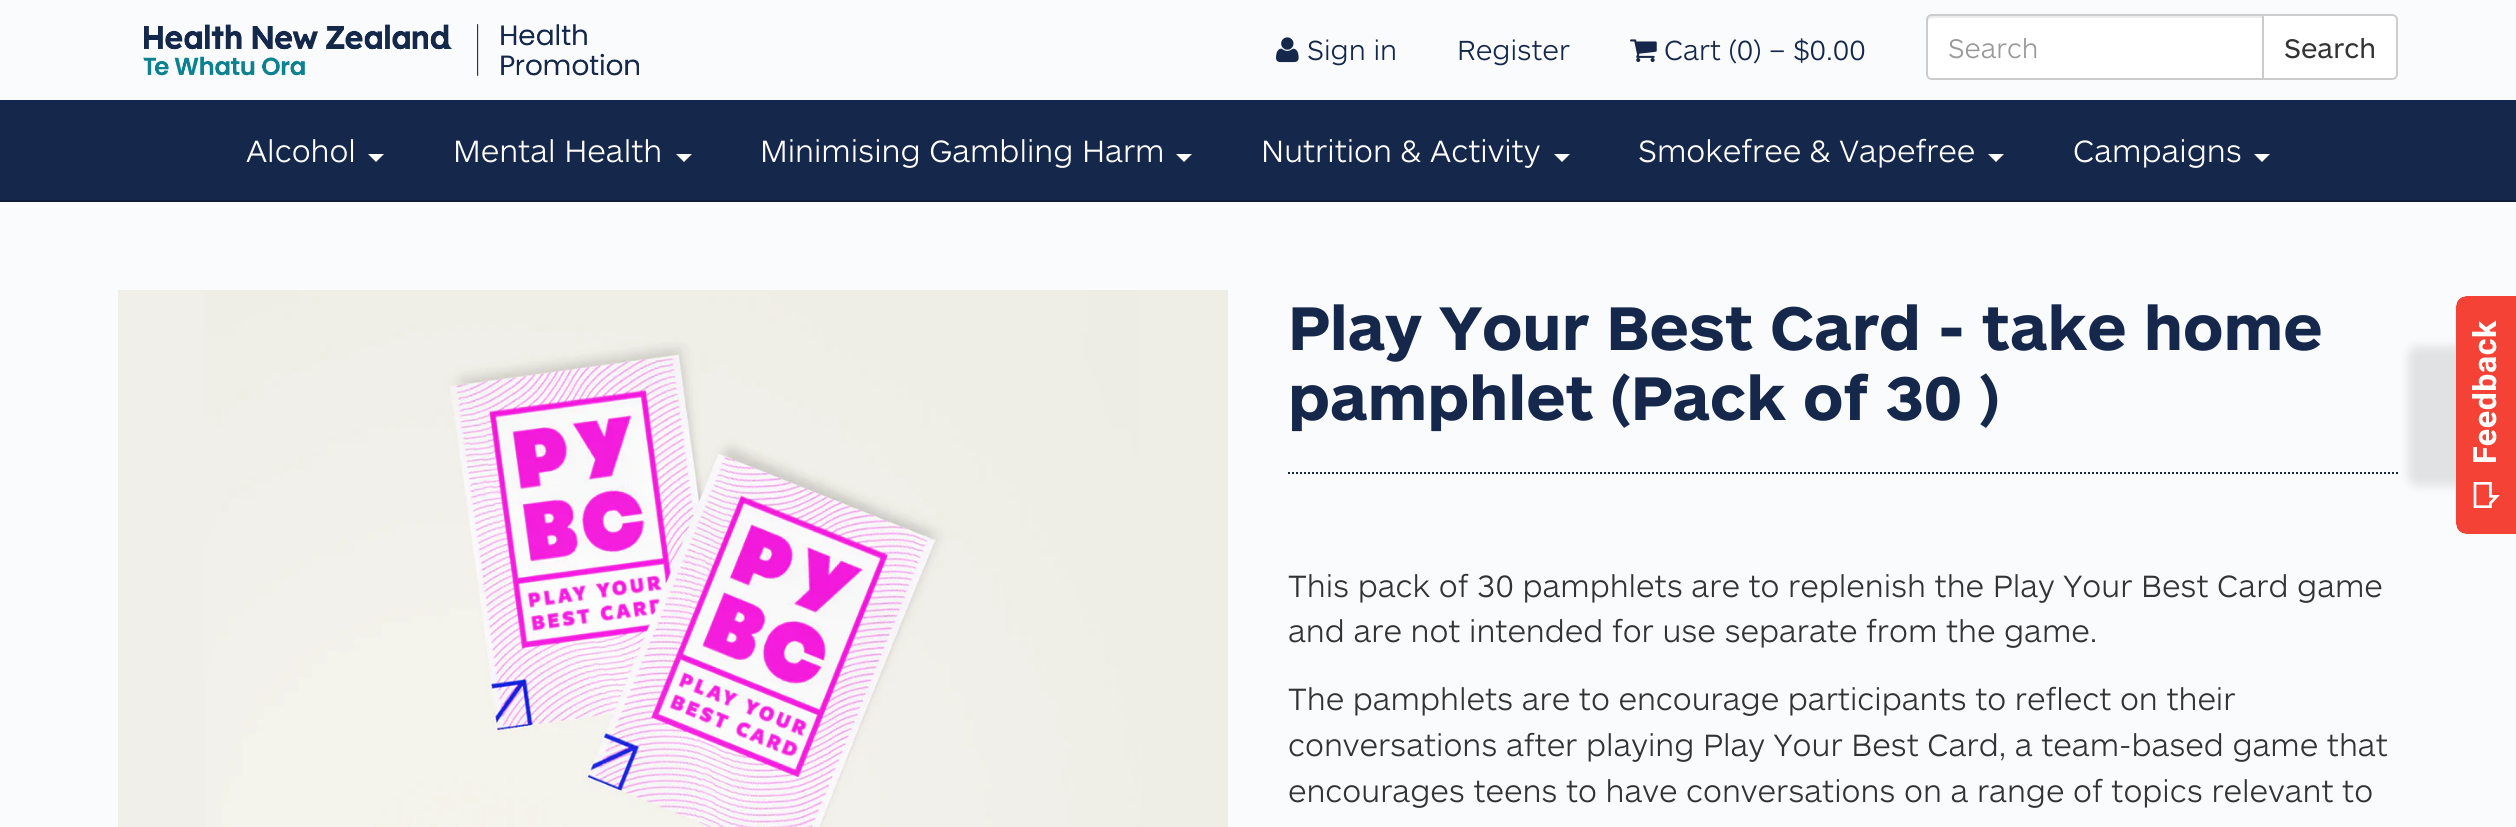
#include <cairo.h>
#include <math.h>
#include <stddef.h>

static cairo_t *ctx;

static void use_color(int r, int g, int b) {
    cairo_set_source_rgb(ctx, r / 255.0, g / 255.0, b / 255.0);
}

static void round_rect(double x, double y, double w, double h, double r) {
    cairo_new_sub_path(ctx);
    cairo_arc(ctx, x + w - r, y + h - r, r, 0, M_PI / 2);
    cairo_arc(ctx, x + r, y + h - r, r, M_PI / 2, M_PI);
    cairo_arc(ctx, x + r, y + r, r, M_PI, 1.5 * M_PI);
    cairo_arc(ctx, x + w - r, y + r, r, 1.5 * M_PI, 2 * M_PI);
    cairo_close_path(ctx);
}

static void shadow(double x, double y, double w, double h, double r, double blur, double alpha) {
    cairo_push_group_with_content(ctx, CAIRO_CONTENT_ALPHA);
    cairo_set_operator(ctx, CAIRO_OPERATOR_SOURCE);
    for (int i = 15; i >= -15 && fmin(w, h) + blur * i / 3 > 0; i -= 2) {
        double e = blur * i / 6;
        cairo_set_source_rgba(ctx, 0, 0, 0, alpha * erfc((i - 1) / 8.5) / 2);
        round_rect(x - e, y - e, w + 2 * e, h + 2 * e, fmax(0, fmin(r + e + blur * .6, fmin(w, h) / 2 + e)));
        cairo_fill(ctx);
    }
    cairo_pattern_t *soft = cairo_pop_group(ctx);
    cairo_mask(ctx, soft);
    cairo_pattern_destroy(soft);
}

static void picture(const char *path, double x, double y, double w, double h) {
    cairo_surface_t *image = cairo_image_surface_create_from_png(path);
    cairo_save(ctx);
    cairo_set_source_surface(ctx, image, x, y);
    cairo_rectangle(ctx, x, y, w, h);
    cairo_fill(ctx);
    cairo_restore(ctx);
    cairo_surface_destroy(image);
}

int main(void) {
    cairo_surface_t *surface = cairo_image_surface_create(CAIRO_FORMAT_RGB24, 2516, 827);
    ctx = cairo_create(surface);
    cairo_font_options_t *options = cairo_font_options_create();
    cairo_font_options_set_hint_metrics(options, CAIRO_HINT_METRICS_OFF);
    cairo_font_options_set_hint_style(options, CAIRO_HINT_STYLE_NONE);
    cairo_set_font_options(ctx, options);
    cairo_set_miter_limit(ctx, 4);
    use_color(250, 251, 252);
    cairo_paint(ctx);
    picture("img1.png", 143, 24, 496, 52);
    picture("img2.png", 1276, 37, 23, 26);
    cairo_select_font_face(ctx, "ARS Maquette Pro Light", CAIRO_FONT_SLANT_NORMAL, CAIRO_FONT_WEIGHT_NORMAL);
    cairo_set_font_size(ctx, 28.75);
    use_color(21, 40, 76);
    cairo_move_to(ctx, 1307, 60);
    cairo_show_text(ctx, "Sign in");
    cairo_move_to(ctx, 1457, 60);
    cairo_show_text(ctx, "Register");
    picture("img3.png", 1630, 39, 27, 23);
    cairo_move_to(ctx, 1664, 60);
    cairo_show_text(ctx, "Cart (0) – $0.00");
    use_color(255, 255, 255);
    cairo_new_path(ctx);
    cairo_move_to(ctx, 2263, 15);
    cairo_line_to(ctx, 2392, 15);
    cairo_curve_to(ctx, 2395, 15, 2397, 17, 2397, 20);
    cairo_line_to(ctx, 2397, 74);
    cairo_curve_to(ctx, 2397, 77, 2395, 79, 2392, 79);
    cairo_line_to(ctx, 2263, 79);
    cairo_close_path(ctx);
    cairo_fill_preserve(ctx);
    use_color(204, 204, 204);
    cairo_stroke(ctx);
    use_color(255, 255, 255);
    cairo_new_path(ctx);
    cairo_move_to(ctx, 1932, 14);
    cairo_line_to(ctx, 2264, 14);
    cairo_line_to(ctx, 2264, 80);
    cairo_line_to(ctx, 1932, 80);
    cairo_curve_to(ctx, 1928.5, 80, 1926, 77.5, 1926, 74);
    cairo_line_to(ctx, 1926, 20);
    cairo_curve_to(ctx, 1926, 16.5, 1928.5, 14, 1932, 14);
    cairo_close_path(ctx);
    cairo_fill(ctx);
    use_color(236, 236, 236);
    cairo_new_path(ctx);
    cairo_move_to(ctx, 1932, 18);
    cairo_line_to(ctx, 2262, 18);
    cairo_line_to(ctx, 2262, 16);
    cairo_line_to(ctx, 1932, 16);
    cairo_curve_to(ctx, 1928, 16, 1928, 19, 1928, 22);
    cairo_curve_to(ctx, 1928, 20, 1930, 18, 1932, 18);
    cairo_close_path(ctx);
    cairo_fill(ctx);
    cairo_new_path(ctx);
    cairo_move_to(ctx, 1932, 15);
    cairo_line_to(ctx, 2263, 15);
    cairo_line_to(ctx, 2263, 79);
    cairo_line_to(ctx, 1932, 79);
    cairo_curve_to(ctx, 1929, 79, 1927, 77, 1927, 74);
    cairo_line_to(ctx, 1927, 20);
    cairo_curve_to(ctx, 1927, 17, 1929, 15, 1932, 15);
    cairo_close_path(ctx);
    use_color(204, 204, 204);
    cairo_stroke(ctx);
    cairo_set_font_size(ctx, 28);
    use_color(153, 153, 153);
    cairo_move_to(ctx, 1948, 58);
    cairo_show_text(ctx, "Search");
    cairo_select_font_face(ctx, "ARS Maquette Pro", CAIRO_FONT_SLANT_NORMAL, CAIRO_FONT_WEIGHT_NORMAL);
    use_color(51, 51, 51);
    cairo_move_to(ctx, 2284, 58);
    cairo_show_text(ctx, "Search");
    use_color(21, 40, 76);
    cairo_rectangle(ctx, 0, 100, 2516, 100);
    cairo_fill(ctx);
    use_color(15, 29, 56);
    cairo_rectangle(ctx, 0, 200, 2516, 2);
    cairo_fill(ctx);
    cairo_select_font_face(ctx, "ARS Maquette Pro Light", CAIRO_FONT_SLANT_NORMAL, CAIRO_FONT_WEIGHT_NORMAL);
    cairo_set_font_size(ctx, 32);
    use_color(255, 255, 255);
    cairo_move_to(ctx, 246, 162);
    cairo_show_text(ctx, "Alcohol");
    cairo_new_path(ctx);
    cairo_move_to(ctx, 368, 154);
    cairo_line_to(ctx, 384, 154);
    cairo_line_to(ctx, 376, 162);
    cairo_close_path(ctx);
    cairo_fill(ctx);
    cairo_move_to(ctx, 453, 162);
    cairo_show_text(ctx, "Mental Health");
    cairo_new_path(ctx);
    cairo_move_to(ctx, 676, 154);
    cairo_line_to(ctx, 692, 154);
    cairo_line_to(ctx, 684, 162);
    cairo_close_path(ctx);
    cairo_fill(ctx);
    cairo_move_to(ctx, 760, 162);
    cairo_show_text(ctx, "Minimising Gambling Harm");
    cairo_new_path(ctx);
    cairo_move_to(ctx, 1176, 154);
    cairo_line_to(ctx, 1192, 154);
    cairo_line_to(ctx, 1184, 162);
    cairo_close_path(ctx);
    cairo_fill(ctx);
    cairo_move_to(ctx, 1261, 162);
    cairo_show_text(ctx, "Nutrition & Activity");
    cairo_new_path(ctx);
    cairo_move_to(ctx, 1554, 154);
    cairo_line_to(ctx, 1570, 154);
    cairo_line_to(ctx, 1562, 162);
    cairo_close_path(ctx);
    cairo_fill(ctx);
    cairo_move_to(ctx, 1638, 162);
    cairo_show_text(ctx, "Smokefree & Vapefree");
    cairo_new_path(ctx);
    cairo_move_to(ctx, 1988, 154);
    cairo_line_to(ctx, 2004, 154);
    cairo_line_to(ctx, 1996, 162);
    cairo_close_path(ctx);
    cairo_fill(ctx);
    cairo_move_to(ctx, 2073, 162);
    cairo_show_text(ctx, "Campaigns");
    cairo_new_path(ctx);
    cairo_move_to(ctx, 2254, 154);
    cairo_line_to(ctx, 2270, 154);
    cairo_line_to(ctx, 2262, 162);
    cairo_close_path(ctx);
    cairo_fill(ctx);
    picture("img4.png", 118, 290, 1110, 537);
    cairo_new_path(ctx);
    cairo_move_to(ctx, 1288, 473);
    cairo_line_to(ctx, 2398, 473);
    use_color(21, 40, 76);
    cairo_set_dash(ctx, (double[]){2, 2}, 2, 0);
    cairo_stroke(ctx);
    cairo_select_font_face(ctx, "ARS Maquette Pro", CAIRO_FONT_SLANT_NORMAL, CAIRO_FONT_WEIGHT_BOLD);
    cairo_set_font_size(ctx, 64);
    cairo_move_to(ctx, 1288, 350);
    cairo_show_text(ctx, "Play Your Best Card - take home");
    cairo_move_to(ctx, 1288, 420);
    cairo_show_text(ctx, "pamphlet (Pack of 30 )");
    cairo_select_font_face(ctx, "ARS Maquette Pro Light", CAIRO_FONT_SLANT_NORMAL, CAIRO_FONT_WEIGHT_NORMAL);
    cairo_set_font_size(ctx, 32);
    use_color(51, 51, 51);
    cairo_move_to(ctx, 1288, 597);
    cairo_show_text(ctx, "This pack of 30 pamphlets are to replenish the Play Your Best Card game");
    cairo_move_to(ctx, 1288, 642);
    cairo_show_text(ctx, "and are not intended for use separate from the game.");
    cairo_move_to(ctx, 1288, 710);
    cairo_show_text(ctx, "The pamphlets are to encourage participants to reflect on their");
    cairo_move_to(ctx, 1288, 756);
    cairo_show_text(ctx, "conversations after playing Play Your Best Card, a team-based game that");
    cairo_move_to(ctx, 1288, 802);
    cairo_show_text(ctx, "encourages teens to have conversations on a range of topics relevant to");
    use_color(0, 0, 0);
    shadow(2408, 346, 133, 140, 10, 5, 0.1);
    picture("img5.png", 2456, 296, 60, 238);
    cairo_surface_write_to_png(surface, "result.png");
    cairo_font_options_destroy(options);
    cairo_destroy(ctx);
    cairo_surface_destroy(surface);
    return 0;
}
